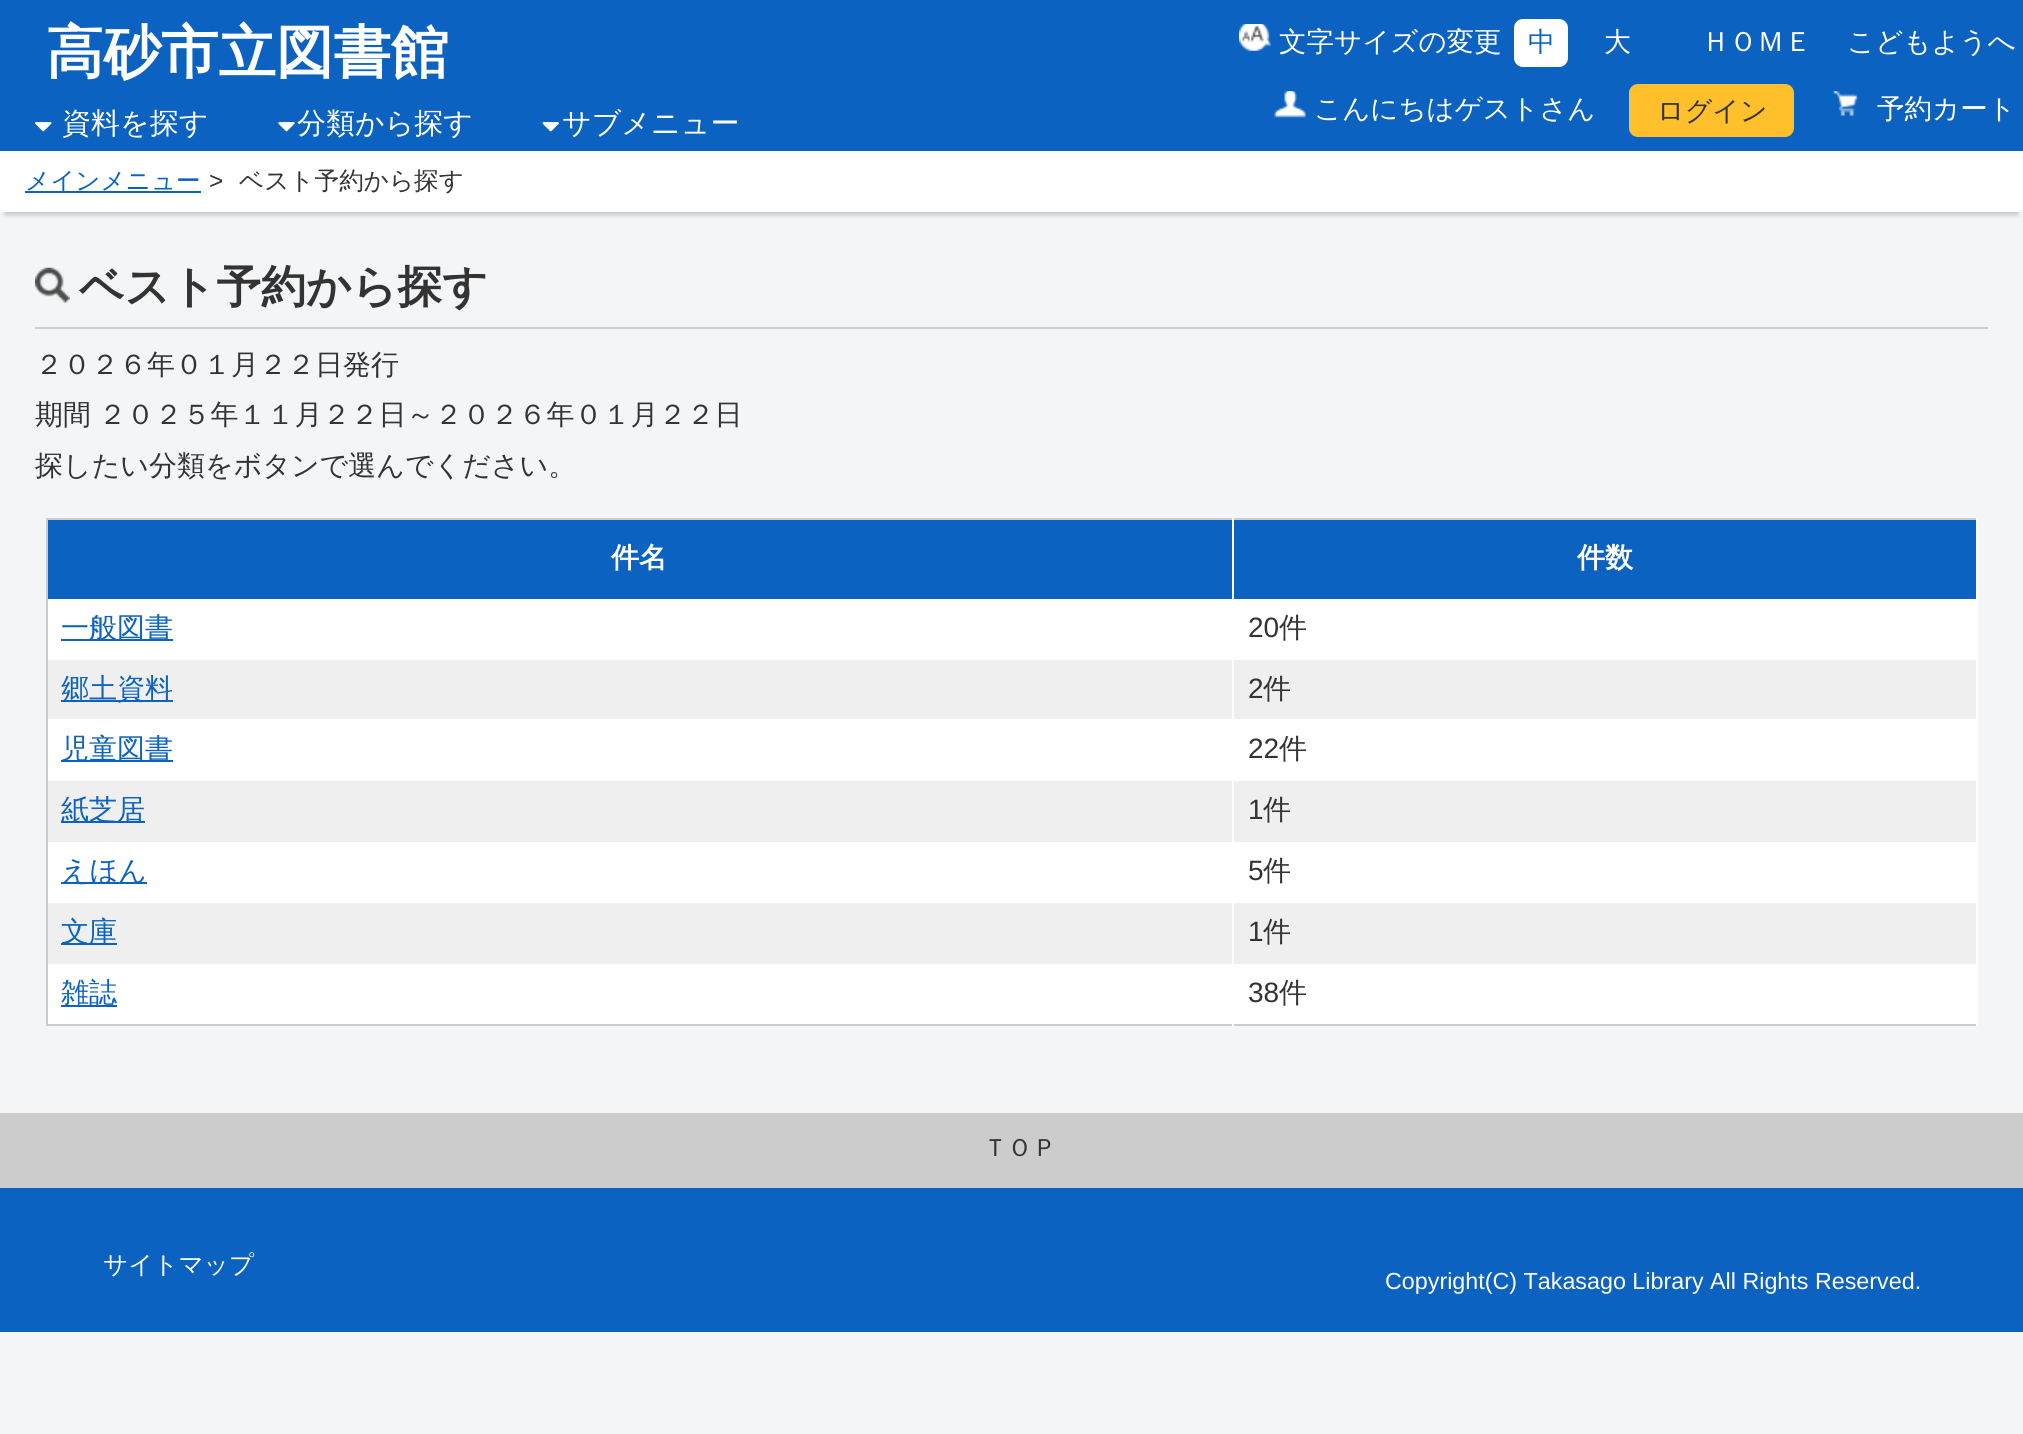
#include <cairo.h>
#include <math.h>
#include <stddef.h>

static cairo_t *ctx;

static void use_color(int r, int g, int b) {
    cairo_set_source_rgb(ctx, r / 255.0, g / 255.0, b / 255.0);
}

static void spaced_text(double x, double y, const char *s, double letter, double word) {
    cairo_move_to(ctx, x, y);
    while (*s) {
        char ch[5] = {0};
        int n = 0;
        do ch[n++] = *s++; while ((*s & 0xC0) == 0x80);
        cairo_show_text(ctx, ch);
        cairo_rel_move_to(ctx, letter + word * (*ch == ' '), 0);
    }
}

static void round_rect(double x, double y, double w, double h, double r) {
    cairo_new_sub_path(ctx);
    cairo_arc(ctx, x + w - r, y + h - r, r, 0, M_PI / 2);
    cairo_arc(ctx, x + r, y + h - r, r, M_PI / 2, M_PI);
    cairo_arc(ctx, x + r, y + r, r, M_PI, 1.5 * M_PI);
    cairo_arc(ctx, x + w - r, y + r, r, 1.5 * M_PI, 2 * M_PI);
    cairo_close_path(ctx);
}

static void shadow(double x, double y, double w, double h, double r, double blur, double alpha) {
    cairo_push_group_with_content(ctx, CAIRO_CONTENT_ALPHA);
    cairo_set_operator(ctx, CAIRO_OPERATOR_SOURCE);
    for (int i = 15; i >= -15 && fmin(w, h) + blur * i / 3 > 0; i -= 2) {
        double e = blur * i / 6;
        cairo_set_source_rgba(ctx, 0, 0, 0, alpha * erfc((i - 1) / 8.5) / 2);
        round_rect(x - e, y - e, w + 2 * e, h + 2 * e, fmax(0, fmin(r + e + blur * .6, fmin(w, h) / 2 + e)));
        cairo_fill(ctx);
    }
    cairo_pattern_t *soft = cairo_pop_group(ctx);
    cairo_mask(ctx, soft);
    cairo_pattern_destroy(soft);
}

static void picture(const char *path, double x, double y, double w, double h) {
    cairo_surface_t *image = cairo_image_surface_create_from_png(path);
    cairo_save(ctx);
    cairo_set_source_surface(ctx, image, x, y);
    cairo_rectangle(ctx, x, y, w, h);
    cairo_fill(ctx);
    cairo_restore(ctx);
    cairo_surface_destroy(image);
}

int main(void) {
    cairo_surface_t *surface = cairo_image_surface_create(CAIRO_FORMAT_RGB24, 2023, 1434);
    ctx = cairo_create(surface);
    cairo_font_options_t *options = cairo_font_options_create();
    cairo_font_options_set_hint_metrics(options, CAIRO_HINT_METRICS_OFF);
    cairo_font_options_set_hint_style(options, CAIRO_HINT_STYLE_NONE);
    cairo_set_font_options(ctx, options);
    cairo_set_miter_limit(ctx, 4);
    use_color(243, 245, 247);
    cairo_paint(ctx);
    use_color(11, 98, 193);
    cairo_rectangle(ctx, 0, 0, 2023, 151);
    cairo_fill(ctx);
    cairo_select_font_face(ctx, "WenQuanYi Zen Hei", CAIRO_FONT_SLANT_NORMAL, CAIRO_FONT_WEIGHT_BOLD);
    cairo_set_font_size(ctx, 57.5);
    use_color(255, 255, 255);
    cairo_move_to(ctx, 46, 72);
    cairo_show_text(ctx, "高砂市立図書館");
    picture("img1.png", 35, 122, 17, 10);
    cairo_select_font_face(ctx, "WenQuanYi Zen Hei Medium", CAIRO_FONT_SLANT_NORMAL, CAIRO_FONT_WEIGHT_NORMAL);
    cairo_set_font_size(ctx, 29);
    cairo_move_to(ctx, 62, 133);
    cairo_show_text(ctx, "資料を探す");
    picture("img2.png", 278, 122, 17, 10);
    cairo_move_to(ctx, 297, 133);
    cairo_show_text(ctx, "分類から探す");
    picture("img3.png", 542, 122, 17, 10);
    cairo_move_to(ctx, 562, 133);
    cairo_show_text(ctx, "サブメニュー");
    picture("img4.png", 1239, 24, 32, 27);
    cairo_set_font_size(ctx, 27.5);
    cairo_move_to(ctx, 1279, 51);
    cairo_show_text(ctx, "文字サイズの変更");
    round_rect(1514, 19, 54, 48, 9);
    cairo_fill(ctx);
    cairo_set_font_size(ctx, 27);
    use_color(11, 98, 193);
    cairo_move_to(ctx, 1528, 51);
    cairo_show_text(ctx, "中");
    use_color(255, 255, 255);
    cairo_move_to(ctx, 1604, 51);
    cairo_show_text(ctx, "大");
    cairo_set_font_size(ctx, 27.5);
    cairo_move_to(ctx, 1702, 51);
    cairo_show_text(ctx, "ＨＯＭＥ");
    cairo_move_to(ctx, 1847, 51);
    cairo_show_text(ctx, "こどもようへ");
    picture("img5.png", 1274, 91, 32, 27);
    cairo_move_to(ctx, 1314, 118);
    cairo_show_text(ctx, "こんにちはゲストさん");
    use_color(255, 192, 43);
    round_rect(1629, 84, 165, 53, 9);
    cairo_fill(ctx);
    cairo_set_font_size(ctx, 27);
    use_color(51, 51, 51);
    cairo_move_to(ctx, 1657, 120);
    cairo_show_text(ctx, "ログイン");
    picture("img6.png", 1833, 91, 25, 25);
    cairo_set_font_size(ctx, 27.5);
    use_color(255, 255, 255);
    cairo_move_to(ctx, 1877, 118);
    cairo_show_text(ctx, "予約カート");
    use_color(0, 0, 0);
    shadow(5, 165, 2013, 50, 0, 2.5, 0.2);
    use_color(255, 255, 255);
    cairo_rectangle(ctx, 0, 151, 2023, 61);
    cairo_fill(ctx);
    use_color(11, 98, 193);
    cairo_rectangle(ctx, 25, 191, 176, 2);
    cairo_fill(ctx);
    cairo_set_font_size(ctx, 24.6);
    cairo_move_to(ctx, 25, 189);
    cairo_show_text(ctx, "メインメニュー");
    cairo_select_font_face(ctx, "Liberation Sans", CAIRO_FONT_SLANT_NORMAL, CAIRO_FONT_WEIGHT_NORMAL);
    use_color(51, 51, 51);
    cairo_move_to(ctx, 209, 189);
    cairo_show_text(ctx, ">");
    cairo_select_font_face(ctx, "WenQuanYi Zen Hei Medium", CAIRO_FONT_SLANT_NORMAL, CAIRO_FONT_WEIGHT_NORMAL);
    cairo_move_to(ctx, 239, 189);
    cairo_show_text(ctx, "ベスト予約から探す");
    use_color(204, 204, 204);
    cairo_rectangle(ctx, 35, 327, 1953, 2);
    cairo_fill(ctx);
    picture("img7.png", 35, 267, 35, 36);
    cairo_select_font_face(ctx, "WenQuanYi Zen Hei", CAIRO_FONT_SLANT_NORMAL, CAIRO_FONT_WEIGHT_BOLD);
    cairo_set_font_size(ctx, 44.75);
    use_color(51, 51, 51);
    cairo_move_to(ctx, 79, 302);
    cairo_show_text(ctx, "ベスト予約から探す");
    cairo_select_font_face(ctx, "WenQuanYi Zen Hei Medium", CAIRO_FONT_SLANT_NORMAL, CAIRO_FONT_WEIGHT_NORMAL);
    cairo_set_font_size(ctx, 28);
    cairo_move_to(ctx, 35, 374);
    cairo_show_text(ctx, "２０２６年０１月２２日発行");
    spaced_text(35, 424, "期間 ２０２５年１１月２２日～２０２６年０１月２２日", 0, -1);
    cairo_move_to(ctx, 35, 475);
    cairo_show_text(ctx, "探したい分類をボタンで選んでください。");
    use_color(204, 204, 204);
    cairo_rectangle(ctx, 46, 1024, 1932, 2);
    cairo_fill(ctx);
    cairo_rectangle(ctx, 46, 518, 2, 508);
    cairo_fill(ctx);
    cairo_rectangle(ctx, 46, 518, 1932, 2);
    cairo_fill(ctx);
    use_color(11, 98, 193);
    cairo_rectangle(ctx, 48, 520, 1184, 79);
    cairo_fill(ctx);
    cairo_select_font_face(ctx, "WenQuanYi Zen Hei", CAIRO_FONT_SLANT_NORMAL, CAIRO_FONT_WEIGHT_BOLD);
    use_color(255, 255, 255);
    cairo_move_to(ctx, 611, 567);
    cairo_show_text(ctx, "件名");
    use_color(11, 98, 193);
    cairo_rectangle(ctx, 1234, 520, 742, 79);
    cairo_fill(ctx);
    use_color(255, 255, 255);
    cairo_move_to(ctx, 1577, 567);
    cairo_show_text(ctx, "件数");
    cairo_rectangle(ctx, 48, 599, 1928, 61);
    cairo_fill(ctx);
    cairo_rectangle(ctx, 1232, 518, 2, 81);
    cairo_fill(ctx);
    use_color(11, 98, 193);
    cairo_rectangle(ctx, 61, 639, 112, 2);
    cairo_fill(ctx);
    cairo_select_font_face(ctx, "WenQuanYi Zen Hei Medium", CAIRO_FONT_SLANT_NORMAL, CAIRO_FONT_WEIGHT_NORMAL);
    cairo_move_to(ctx, 61, 637);
    cairo_show_text(ctx, "一般図書");
    cairo_select_font_face(ctx, "Liberation Sans", CAIRO_FONT_SLANT_NORMAL, CAIRO_FONT_WEIGHT_NORMAL);
    use_color(51, 51, 51);
    cairo_move_to(ctx, 1248, 637);
    cairo_show_text(ctx, "20");
    cairo_select_font_face(ctx, "WenQuanYi Zen Hei Medium", CAIRO_FONT_SLANT_NORMAL, CAIRO_FONT_WEIGHT_NORMAL);
    cairo_move_to(ctx, 1279, 637);
    cairo_show_text(ctx, "件");
    use_color(239, 239, 239);
    cairo_rectangle(ctx, 48, 660, 1928, 59);
    cairo_fill(ctx);
    use_color(255, 255, 255);
    cairo_rectangle(ctx, 48, 719, 1928, 62);
    cairo_fill(ctx);
    cairo_rectangle(ctx, 1232, 658, 2, 63);
    cairo_fill(ctx);
    use_color(11, 98, 193);
    cairo_rectangle(ctx, 61, 700, 112, 2);
    cairo_fill(ctx);
    cairo_move_to(ctx, 61, 698);
    cairo_show_text(ctx, "郷土資料");
    cairo_select_font_face(ctx, "Liberation Sans", CAIRO_FONT_SLANT_NORMAL, CAIRO_FONT_WEIGHT_NORMAL);
    use_color(51, 51, 51);
    cairo_move_to(ctx, 1248, 698);
    cairo_show_text(ctx, "2");
    cairo_select_font_face(ctx, "WenQuanYi Zen Hei Medium", CAIRO_FONT_SLANT_NORMAL, CAIRO_FONT_WEIGHT_NORMAL);
    cairo_move_to(ctx, 1263, 698);
    cairo_show_text(ctx, "件");
    use_color(11, 98, 193);
    cairo_rectangle(ctx, 61, 760, 112, 2);
    cairo_fill(ctx);
    cairo_move_to(ctx, 61, 758);
    cairo_show_text(ctx, "児童図書");
    cairo_select_font_face(ctx, "Liberation Sans", CAIRO_FONT_SLANT_NORMAL, CAIRO_FONT_WEIGHT_NORMAL);
    use_color(51, 51, 51);
    cairo_move_to(ctx, 1248, 758);
    cairo_show_text(ctx, "22");
    cairo_select_font_face(ctx, "WenQuanYi Zen Hei Medium", CAIRO_FONT_SLANT_NORMAL, CAIRO_FONT_WEIGHT_NORMAL);
    cairo_move_to(ctx, 1279, 758);
    cairo_show_text(ctx, "件");
    use_color(239, 239, 239);
    cairo_rectangle(ctx, 48, 781, 1928, 61);
    cairo_fill(ctx);
    use_color(11, 98, 193);
    cairo_rectangle(ctx, 61, 821, 84, 2);
    cairo_fill(ctx);
    cairo_move_to(ctx, 61, 819);
    cairo_show_text(ctx, "紙芝居");
    cairo_select_font_face(ctx, "Liberation Sans", CAIRO_FONT_SLANT_NORMAL, CAIRO_FONT_WEIGHT_NORMAL);
    use_color(51, 51, 51);
    cairo_move_to(ctx, 1248, 819);
    cairo_show_text(ctx, "1");
    cairo_select_font_face(ctx, "WenQuanYi Zen Hei Medium", CAIRO_FONT_SLANT_NORMAL, CAIRO_FONT_WEIGHT_NORMAL);
    cairo_move_to(ctx, 1263, 819);
    cairo_show_text(ctx, "件");
    use_color(255, 255, 255);
    cairo_rectangle(ctx, 48, 842, 1928, 61);
    cairo_fill(ctx);
    cairo_rectangle(ctx, 1232, 781, 2, 61);
    cairo_fill(ctx);
    use_color(11, 98, 193);
    cairo_rectangle(ctx, 61, 882, 86, 2);
    cairo_fill(ctx);
    cairo_move_to(ctx, 61, 880);
    cairo_show_text(ctx, "えほん");
    cairo_select_font_face(ctx, "Liberation Sans", CAIRO_FONT_SLANT_NORMAL, CAIRO_FONT_WEIGHT_NORMAL);
    use_color(51, 51, 51);
    cairo_move_to(ctx, 1248, 880);
    cairo_show_text(ctx, "5");
    cairo_select_font_face(ctx, "WenQuanYi Zen Hei Medium", CAIRO_FONT_SLANT_NORMAL, CAIRO_FONT_WEIGHT_NORMAL);
    cairo_move_to(ctx, 1263, 880);
    cairo_show_text(ctx, "件");
    use_color(239, 239, 239);
    cairo_rectangle(ctx, 48, 903, 1928, 61);
    cairo_fill(ctx);
    use_color(11, 98, 193);
    cairo_rectangle(ctx, 61, 943, 56, 2);
    cairo_fill(ctx);
    cairo_move_to(ctx, 61, 941);
    cairo_show_text(ctx, "文庫");
    cairo_select_font_face(ctx, "Liberation Sans", CAIRO_FONT_SLANT_NORMAL, CAIRO_FONT_WEIGHT_NORMAL);
    use_color(51, 51, 51);
    cairo_move_to(ctx, 1248, 941);
    cairo_show_text(ctx, "1");
    cairo_select_font_face(ctx, "WenQuanYi Zen Hei Medium", CAIRO_FONT_SLANT_NORMAL, CAIRO_FONT_WEIGHT_NORMAL);
    cairo_move_to(ctx, 1263, 941);
    cairo_show_text(ctx, "件");
    use_color(255, 255, 255);
    cairo_rectangle(ctx, 48, 964, 1928, 60);
    cairo_fill(ctx);
    cairo_rectangle(ctx, 1232, 901, 2, 125);
    cairo_fill(ctx);
    use_color(11, 98, 193);
    cairo_rectangle(ctx, 61, 1005, 56, 2);
    cairo_fill(ctx);
    cairo_move_to(ctx, 61, 1002);
    cairo_show_text(ctx, "雑誌");
    use_color(255, 255, 255);
    cairo_rectangle(ctx, 1976, 518, 2, 508);
    cairo_fill(ctx);
    cairo_select_font_face(ctx, "Liberation Sans", CAIRO_FONT_SLANT_NORMAL, CAIRO_FONT_WEIGHT_NORMAL);
    use_color(51, 51, 51);
    cairo_move_to(ctx, 1248, 1002);
    cairo_show_text(ctx, "38");
    cairo_select_font_face(ctx, "WenQuanYi Zen Hei Medium", CAIRO_FONT_SLANT_NORMAL, CAIRO_FONT_WEIGHT_NORMAL);
    cairo_move_to(ctx, 1279, 1002);
    cairo_show_text(ctx, "件");
    use_color(204, 204, 204);
    cairo_rectangle(ctx, 0, 1113, 2023, 75);
    cairo_fill(ctx);
    cairo_set_font_size(ctx, 24.6);
    use_color(51, 51, 51);
    cairo_move_to(ctx, 983, 1156);
    cairo_show_text(ctx, "ＴＯＰ");
    use_color(11, 98, 193);
    cairo_rectangle(ctx, 0, 1188, 2023, 144);
    cairo_fill(ctx);
    use_color(255, 255, 255);
    cairo_move_to(ctx, 103, 1273);
    cairo_show_text(ctx, "サイトマップ");
    cairo_select_font_face(ctx, "Liberation Sans", CAIRO_FONT_SLANT_NORMAL, CAIRO_FONT_WEIGHT_NORMAL);
    cairo_set_font_size(ctx, 23.3);
    cairo_move_to(ctx, 1385, 1289);
    cairo_show_text(ctx, "Copyright(C) Takasago Library All Rights Reserved.");
    cairo_surface_write_to_png(surface, "result.png");
    cairo_font_options_destroy(options);
    cairo_destroy(ctx);
    cairo_surface_destroy(surface);
    return 0;
}
